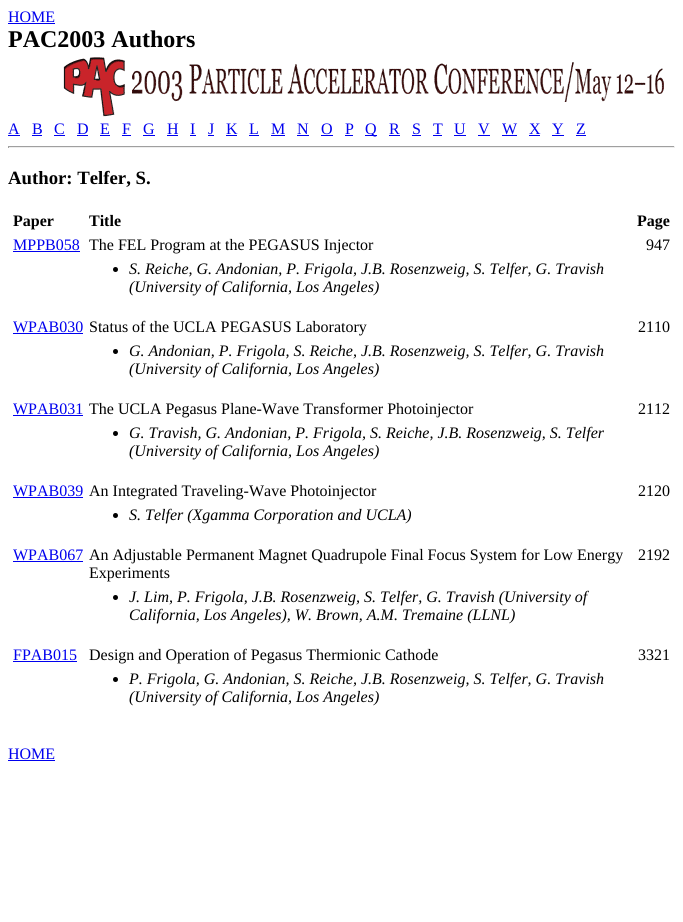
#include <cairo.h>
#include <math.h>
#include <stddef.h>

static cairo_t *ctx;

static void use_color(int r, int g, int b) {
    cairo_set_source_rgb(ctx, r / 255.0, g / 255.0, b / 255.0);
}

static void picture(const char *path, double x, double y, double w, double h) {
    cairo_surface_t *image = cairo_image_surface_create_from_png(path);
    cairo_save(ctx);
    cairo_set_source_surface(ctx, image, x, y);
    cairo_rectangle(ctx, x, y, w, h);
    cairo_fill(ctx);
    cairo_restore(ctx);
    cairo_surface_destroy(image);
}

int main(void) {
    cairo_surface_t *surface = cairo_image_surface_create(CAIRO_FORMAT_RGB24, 683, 922);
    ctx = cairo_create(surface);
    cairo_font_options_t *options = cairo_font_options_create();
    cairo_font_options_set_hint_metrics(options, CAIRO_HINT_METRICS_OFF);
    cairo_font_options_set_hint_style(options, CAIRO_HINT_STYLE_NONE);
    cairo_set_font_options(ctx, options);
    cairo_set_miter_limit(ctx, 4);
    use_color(255, 255, 255);
    cairo_paint(ctx);
    cairo_select_font_face(ctx, "Liberation Serif", CAIRO_FONT_SLANT_NORMAL, CAIRO_FONT_WEIGHT_NORMAL);
    cairo_set_font_size(ctx, 16);
    use_color(0, 0, 238);
    cairo_move_to(ctx, 8, 22);
    cairo_show_text(ctx, "HOME");
    cairo_rectangle(ctx, 8, 23, 47, 1);
    cairo_fill(ctx);
    cairo_select_font_face(ctx, "Liberation Serif", CAIRO_FONT_SLANT_NORMAL, CAIRO_FONT_WEIGHT_BOLD);
    cairo_set_font_size(ctx, 24);
    use_color(0, 0, 0);
    cairo_move_to(ctx, 8, 47);
    cairo_show_text(ctx, "PAC2003 Authors");
    picture("img1.png", 63, 57, 601, 60);
    cairo_select_font_face(ctx, "Liberation Serif", CAIRO_FONT_SLANT_NORMAL, CAIRO_FONT_WEIGHT_NORMAL);
    cairo_set_font_size(ctx, 16);
    use_color(0, 0, 238);
    cairo_move_to(ctx, 8, 134);
    cairo_show_text(ctx, "A");
    cairo_rectangle(ctx, 8, 135, 12, 1);
    cairo_fill(ctx);
    cairo_move_to(ctx, 32, 134);
    cairo_show_text(ctx, "B");
    cairo_rectangle(ctx, 32, 135, 10, 1);
    cairo_fill(ctx);
    cairo_move_to(ctx, 54, 134);
    cairo_show_text(ctx, "C");
    cairo_rectangle(ctx, 54, 135, 11, 1);
    cairo_fill(ctx);
    cairo_move_to(ctx, 77, 134);
    cairo_show_text(ctx, "D");
    cairo_rectangle(ctx, 77, 135, 11, 1);
    cairo_fill(ctx);
    cairo_move_to(ctx, 100, 134);
    cairo_show_text(ctx, "E");
    cairo_rectangle(ctx, 100, 135, 10, 1);
    cairo_fill(ctx);
    cairo_move_to(ctx, 122, 134);
    cairo_show_text(ctx, "F");
    cairo_rectangle(ctx, 122, 135, 9, 1);
    cairo_fill(ctx);
    cairo_move_to(ctx, 143, 134);
    cairo_show_text(ctx, "G");
    cairo_rectangle(ctx, 143, 135, 12, 1);
    cairo_fill(ctx);
    cairo_move_to(ctx, 167, 134);
    cairo_show_text(ctx, "H");
    cairo_rectangle(ctx, 167, 135, 11, 1);
    cairo_fill(ctx);
    cairo_move_to(ctx, 190, 134);
    cairo_show_text(ctx, "I");
    cairo_rectangle(ctx, 190, 135, 6, 1);
    cairo_fill(ctx);
    cairo_move_to(ctx, 208, 134);
    cairo_show_text(ctx, "J");
    cairo_rectangle(ctx, 208, 135, 6, 1);
    cairo_fill(ctx);
    cairo_move_to(ctx, 226, 134);
    cairo_show_text(ctx, "K");
    cairo_rectangle(ctx, 226, 135, 11, 1);
    cairo_fill(ctx);
    cairo_move_to(ctx, 249, 134);
    cairo_show_text(ctx, "L");
    cairo_rectangle(ctx, 249, 135, 10, 1);
    cairo_fill(ctx);
    cairo_move_to(ctx, 271, 134);
    cairo_show_text(ctx, "M");
    cairo_rectangle(ctx, 271, 135, 14, 1);
    cairo_fill(ctx);
    cairo_move_to(ctx, 297, 134);
    cairo_show_text(ctx, "N");
    cairo_rectangle(ctx, 297, 135, 12, 1);
    cairo_fill(ctx);
    cairo_move_to(ctx, 321, 134);
    cairo_show_text(ctx, "O");
    cairo_rectangle(ctx, 321, 135, 12, 1);
    cairo_fill(ctx);
    cairo_move_to(ctx, 345, 134);
    cairo_show_text(ctx, "P");
    cairo_rectangle(ctx, 345, 135, 8, 1);
    cairo_fill(ctx);
    cairo_rectangle(ctx, 365, 135, 12, 1);
    cairo_fill(ctx);
    cairo_move_to(ctx, 365, 134);
    cairo_show_text(ctx, "Q");
    cairo_move_to(ctx, 389, 134);
    cairo_show_text(ctx, "R");
    cairo_rectangle(ctx, 389, 135, 11, 1);
    cairo_fill(ctx);
    cairo_move_to(ctx, 412, 134);
    cairo_show_text(ctx, "S");
    cairo_rectangle(ctx, 412, 135, 9, 1);
    cairo_fill(ctx);
    cairo_move_to(ctx, 433, 134);
    cairo_show_text(ctx, "T");
    cairo_rectangle(ctx, 433, 135, 9, 1);
    cairo_fill(ctx);
    cairo_move_to(ctx, 454, 134);
    cairo_show_text(ctx, "U");
    cairo_rectangle(ctx, 454, 135, 12, 1);
    cairo_fill(ctx);
    cairo_move_to(ctx, 478, 134);
    cairo_show_text(ctx, "V");
    cairo_rectangle(ctx, 478, 135, 12, 1);
    cairo_fill(ctx);
    cairo_move_to(ctx, 502, 134);
    cairo_show_text(ctx, "W");
    cairo_rectangle(ctx, 502, 135, 15, 1);
    cairo_fill(ctx);
    cairo_move_to(ctx, 529, 134);
    cairo_show_text(ctx, "X");
    cairo_rectangle(ctx, 529, 135, 11, 1);
    cairo_fill(ctx);
    cairo_move_to(ctx, 552, 134);
    cairo_show_text(ctx, "Y");
    cairo_rectangle(ctx, 552, 135, 12, 1);
    cairo_fill(ctx);
    cairo_move_to(ctx, 576, 134);
    cairo_show_text(ctx, "Z");
    cairo_rectangle(ctx, 576, 135, 10, 1);
    cairo_fill(ctx);
    use_color(159, 159, 159);
    cairo_rectangle(ctx, 8, 146, 667, 1);
    cairo_fill(ctx);
    use_color(238, 238, 238);
    cairo_rectangle(ctx, 674, 146, 1, 2);
    cairo_fill(ctx);
    cairo_rectangle(ctx, 8, 147, 667, 1);
    cairo_fill(ctx);
    use_color(159, 159, 159);
    cairo_rectangle(ctx, 8, 146, 1, 2);
    cairo_fill(ctx);
    cairo_select_font_face(ctx, "Liberation Serif", CAIRO_FONT_SLANT_NORMAL, CAIRO_FONT_WEIGHT_BOLD);
    cairo_set_font_size(ctx, 18.75);
    use_color(0, 0, 0);
    cairo_move_to(ctx, 8, 184);
    cairo_show_text(ctx, "Author: Telfer, S.");
    cairo_set_font_size(ctx, 16);
    cairo_move_to(ctx, 13, 226);
    cairo_show_text(ctx, "Paper");
    cairo_move_to(ctx, 89, 226);
    cairo_show_text(ctx, "Title");
    cairo_move_to(ctx, 637, 226);
    cairo_show_text(ctx, "Page");
    cairo_select_font_face(ctx, "Liberation Serif", CAIRO_FONT_SLANT_NORMAL, CAIRO_FONT_WEIGHT_NORMAL);
    use_color(0, 0, 238);
    cairo_move_to(ctx, 13, 250);
    cairo_show_text(ctx, "MPPB058");
    cairo_rectangle(ctx, 13, 251, 67, 1);
    cairo_fill(ctx);
    use_color(0, 0, 0);
    cairo_move_to(ctx, 89, 250);
    cairo_show_text(ctx, "The FEL Program at the PEGASUS Injector");
    cairo_move_to(ctx, 646, 250);
    cairo_show_text(ctx, "947");
    cairo_new_path(ctx);
    cairo_arc(ctx, 115.5, 269.5, 2.5, 0, 2 * M_PI);
    cairo_fill(ctx);
    cairo_select_font_face(ctx, "Liberation Serif", CAIRO_FONT_SLANT_ITALIC, CAIRO_FONT_WEIGHT_NORMAL);
    cairo_move_to(ctx, 129, 274);
    cairo_show_text(ctx, "S. Reiche, G. Andonian, P. Frigola, J.B. Rosenzweig, S. Telfer, G. Travish");
    cairo_move_to(ctx, 129, 292);
    cairo_show_text(ctx, "(University of California, Los Angeles)");
    cairo_select_font_face(ctx, "Liberation Serif", CAIRO_FONT_SLANT_NORMAL, CAIRO_FONT_WEIGHT_NORMAL);
    use_color(0, 0, 238);
    cairo_move_to(ctx, 13, 332);
    cairo_show_text(ctx, "WPAB030");
    cairo_rectangle(ctx, 13, 333, 70, 1);
    cairo_fill(ctx);
    use_color(0, 0, 0);
    cairo_move_to(ctx, 89, 332);
    cairo_show_text(ctx, "Status of the UCLA PEGASUS Laboratory");
    cairo_move_to(ctx, 638, 332);
    cairo_show_text(ctx, "2110");
    cairo_new_path(ctx);
    cairo_arc(ctx, 115.5, 351.5, 2.5, 0, 2 * M_PI);
    cairo_fill(ctx);
    cairo_select_font_face(ctx, "Liberation Serif", CAIRO_FONT_SLANT_ITALIC, CAIRO_FONT_WEIGHT_NORMAL);
    cairo_move_to(ctx, 129, 356);
    cairo_show_text(ctx, "G. Andonian, P. Frigola, S. Reiche, J.B. Rosenzweig, S. Telfer, G. Travish");
    cairo_move_to(ctx, 129, 374);
    cairo_show_text(ctx, "(University of California, Los Angeles)");
    cairo_select_font_face(ctx, "Liberation Serif", CAIRO_FONT_SLANT_NORMAL, CAIRO_FONT_WEIGHT_NORMAL);
    use_color(0, 0, 238);
    cairo_move_to(ctx, 13, 414);
    cairo_show_text(ctx, "WPAB031");
    cairo_rectangle(ctx, 13, 415, 70, 1);
    cairo_fill(ctx);
    use_color(0, 0, 0);
    cairo_move_to(ctx, 89, 414);
    cairo_show_text(ctx, "The UCLA Pegasus Plane-Wave Transformer Photoinjector");
    cairo_move_to(ctx, 638, 414);
    cairo_show_text(ctx, "2112");
    cairo_new_path(ctx);
    cairo_arc(ctx, 115.5, 433.5, 2.5, 0, 2 * M_PI);
    cairo_fill(ctx);
    cairo_select_font_face(ctx, "Liberation Serif", CAIRO_FONT_SLANT_ITALIC, CAIRO_FONT_WEIGHT_NORMAL);
    cairo_move_to(ctx, 129, 438);
    cairo_show_text(ctx, "G. Travish, G. Andonian, P. Frigola, S. Reiche, J.B. Rosenzweig, S. Telfer");
    cairo_move_to(ctx, 129, 456);
    cairo_show_text(ctx, "(University of California, Los Angeles)");
    cairo_select_font_face(ctx, "Liberation Serif", CAIRO_FONT_SLANT_NORMAL, CAIRO_FONT_WEIGHT_NORMAL);
    use_color(0, 0, 238);
    cairo_move_to(ctx, 13, 496);
    cairo_show_text(ctx, "WPAB039");
    cairo_rectangle(ctx, 13, 497, 70, 1);
    cairo_fill(ctx);
    use_color(0, 0, 0);
    cairo_move_to(ctx, 89, 496);
    cairo_show_text(ctx, "An Integrated Traveling-Wave Photoinjector");
    cairo_move_to(ctx, 638, 496);
    cairo_show_text(ctx, "2120");
    cairo_new_path(ctx);
    cairo_arc(ctx, 115.5, 515.5, 2.5, 0, 2 * M_PI);
    cairo_fill(ctx);
    cairo_select_font_face(ctx, "Liberation Serif", CAIRO_FONT_SLANT_ITALIC, CAIRO_FONT_WEIGHT_NORMAL);
    cairo_move_to(ctx, 129, 520);
    cairo_show_text(ctx, "S. Telfer (Xgamma Corporation and UCLA)");
    cairo_select_font_face(ctx, "Liberation Serif", CAIRO_FONT_SLANT_NORMAL, CAIRO_FONT_WEIGHT_NORMAL);
    use_color(0, 0, 238);
    cairo_move_to(ctx, 13, 560);
    cairo_show_text(ctx, "WPAB067");
    cairo_rectangle(ctx, 13, 561, 70, 1);
    cairo_fill(ctx);
    use_color(0, 0, 0);
    cairo_move_to(ctx, 89, 560);
    cairo_show_text(ctx, "An Adjustable Permanent Magnet Quadrupole Final Focus System for Low Energy");
    cairo_move_to(ctx, 89, 578);
    cairo_show_text(ctx, "Experiments");
    cairo_move_to(ctx, 638, 560);
    cairo_show_text(ctx, "2192");
    cairo_new_path(ctx);
    cairo_arc(ctx, 115.5, 597.5, 2.5, 0, 2 * M_PI);
    cairo_fill(ctx);
    cairo_select_font_face(ctx, "Liberation Serif", CAIRO_FONT_SLANT_ITALIC, CAIRO_FONT_WEIGHT_NORMAL);
    cairo_move_to(ctx, 129, 602);
    cairo_show_text(ctx, "J. Lim, P. Frigola, J.B. Rosenzweig, S. Telfer, G. Travish (University of");
    cairo_move_to(ctx, 129, 620);
    cairo_show_text(ctx, "California, Los Angeles), W. Brown, A.M. Tremaine (LLNL)");
    cairo_select_font_face(ctx, "Liberation Serif", CAIRO_FONT_SLANT_NORMAL, CAIRO_FONT_WEIGHT_NORMAL);
    use_color(0, 0, 238);
    cairo_move_to(ctx, 13, 660);
    cairo_show_text(ctx, "FPAB015");
    cairo_rectangle(ctx, 13, 661, 64, 1);
    cairo_fill(ctx);
    use_color(0, 0, 0);
    cairo_move_to(ctx, 89, 660);
    cairo_show_text(ctx, "Design and Operation of Pegasus Thermionic Cathode");
    cairo_move_to(ctx, 638, 660);
    cairo_show_text(ctx, "3321");
    cairo_new_path(ctx);
    cairo_arc(ctx, 115.5, 679.5, 2.5, 0, 2 * M_PI);
    cairo_fill(ctx);
    cairo_select_font_face(ctx, "Liberation Serif", CAIRO_FONT_SLANT_ITALIC, CAIRO_FONT_WEIGHT_NORMAL);
    cairo_move_to(ctx, 129, 684);
    cairo_show_text(ctx, "P. Frigola, G. Andonian, S. Reiche, J.B. Rosenzweig, S. Telfer, G. Travish");
    cairo_move_to(ctx, 129, 702);
    cairo_show_text(ctx, "(University of California, Los Angeles)");
    cairo_select_font_face(ctx, "Liberation Serif", CAIRO_FONT_SLANT_NORMAL, CAIRO_FONT_WEIGHT_NORMAL);
    use_color(0, 0, 238);
    cairo_move_to(ctx, 8, 759);
    cairo_show_text(ctx, "HOME");
    cairo_rectangle(ctx, 8, 760, 47, 1);
    cairo_fill(ctx);
    cairo_surface_write_to_png(surface, "result.png");
    cairo_font_options_destroy(options);
    cairo_destroy(ctx);
    cairo_surface_destroy(surface);
    return 0;
}
